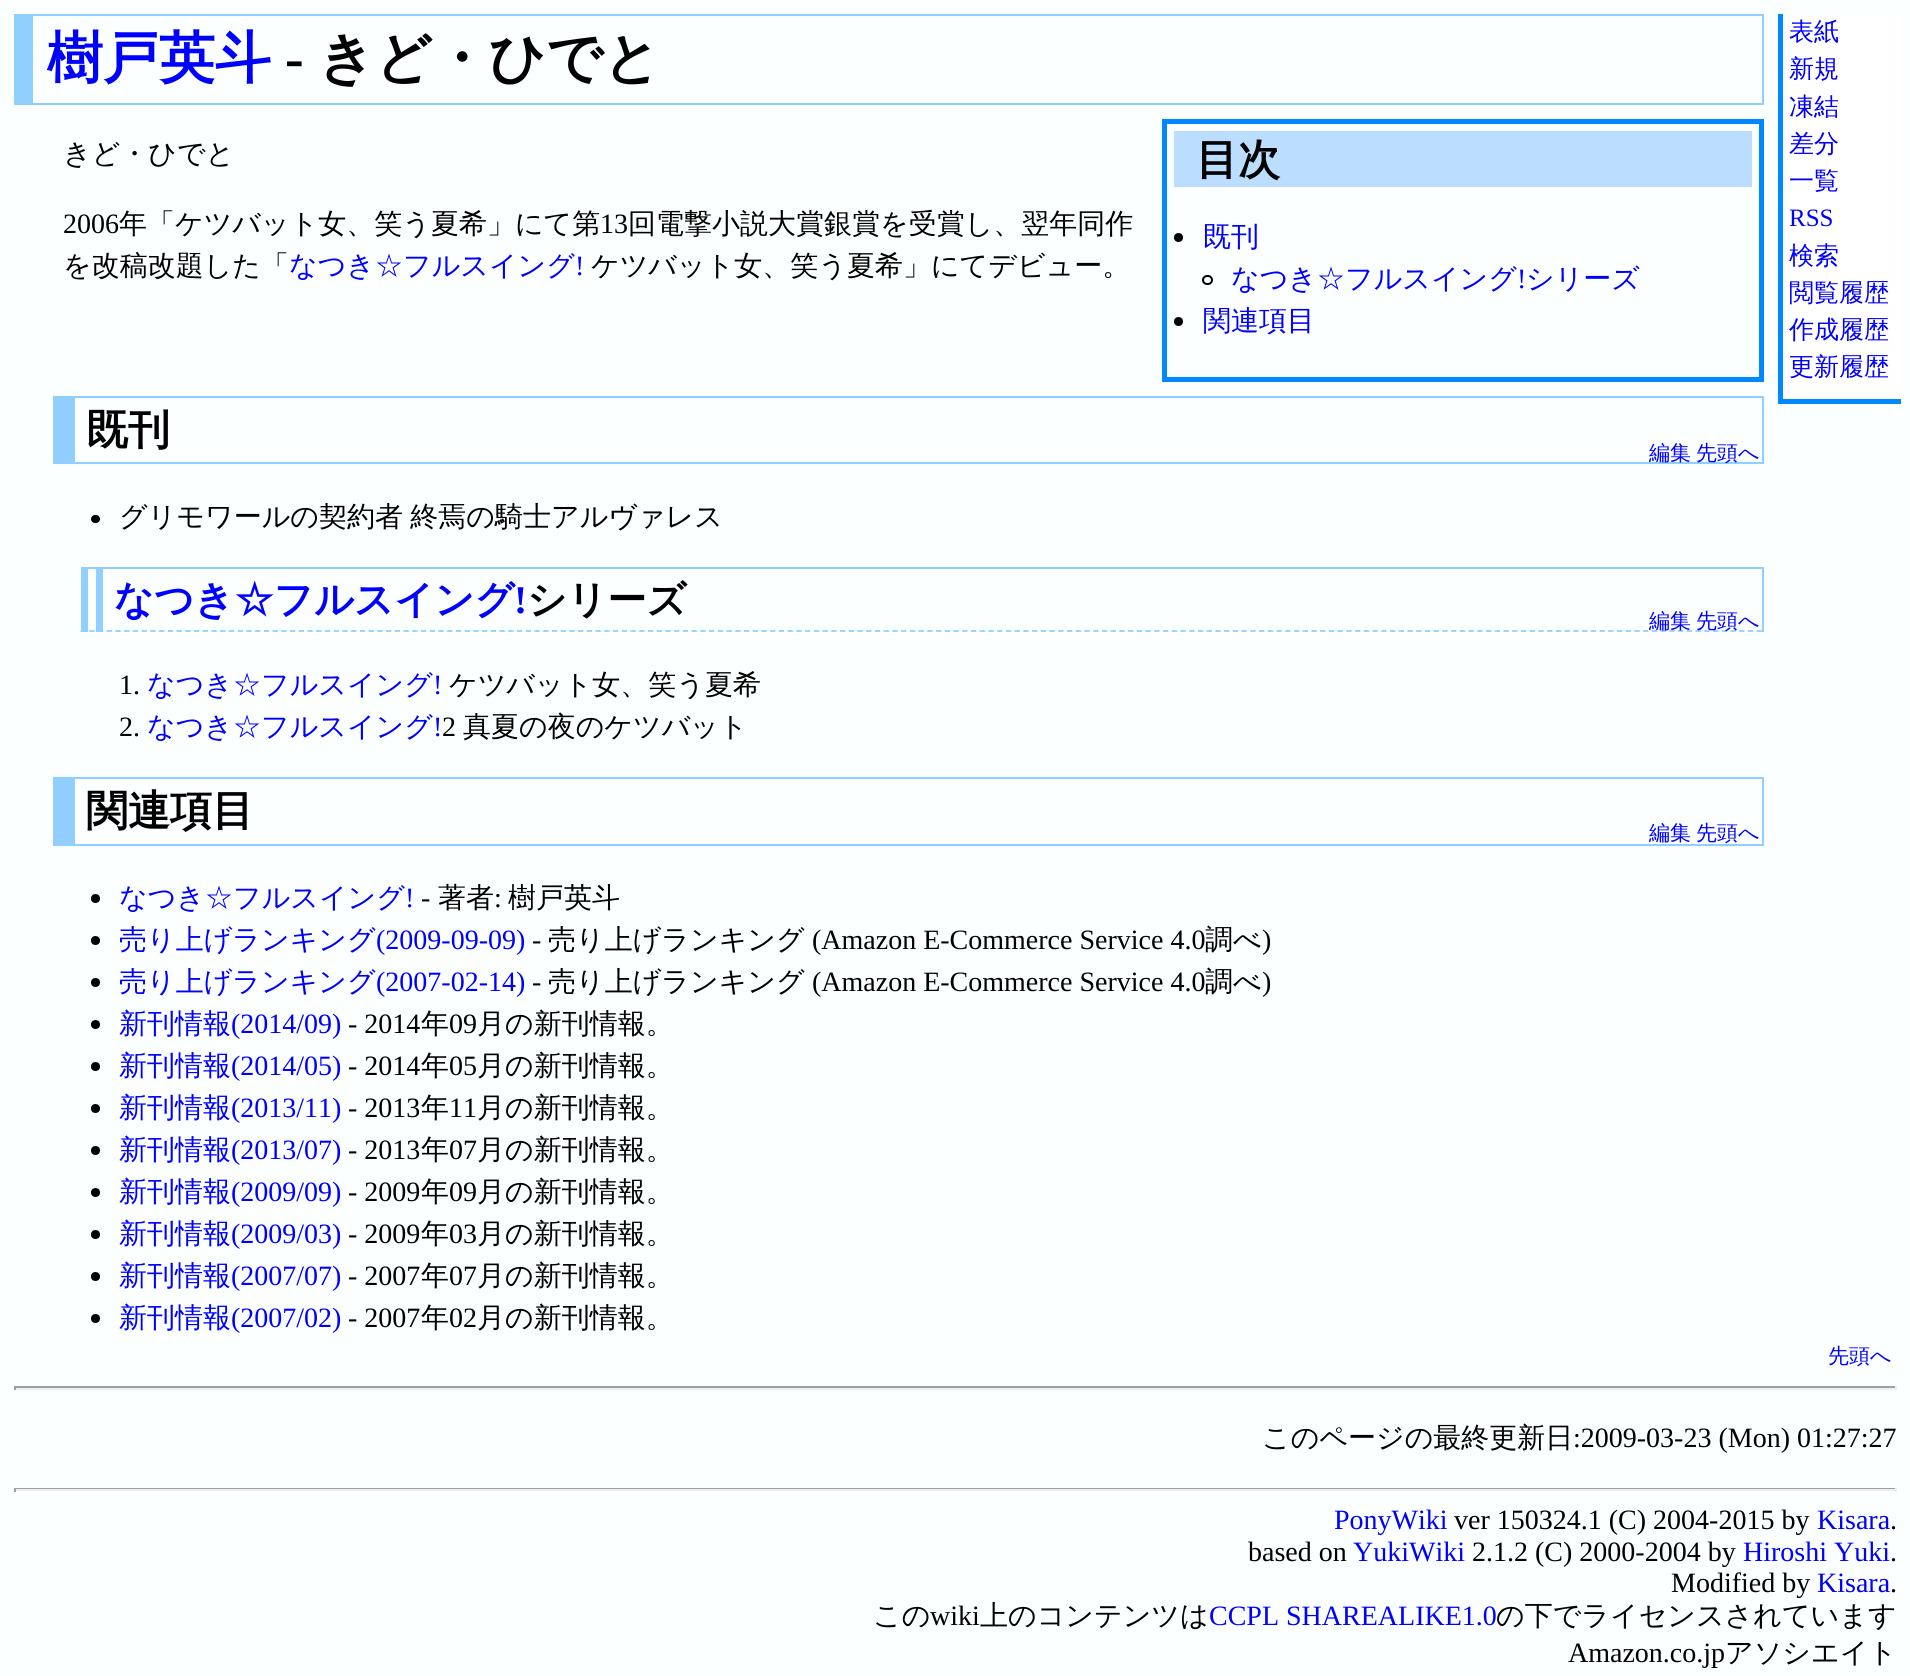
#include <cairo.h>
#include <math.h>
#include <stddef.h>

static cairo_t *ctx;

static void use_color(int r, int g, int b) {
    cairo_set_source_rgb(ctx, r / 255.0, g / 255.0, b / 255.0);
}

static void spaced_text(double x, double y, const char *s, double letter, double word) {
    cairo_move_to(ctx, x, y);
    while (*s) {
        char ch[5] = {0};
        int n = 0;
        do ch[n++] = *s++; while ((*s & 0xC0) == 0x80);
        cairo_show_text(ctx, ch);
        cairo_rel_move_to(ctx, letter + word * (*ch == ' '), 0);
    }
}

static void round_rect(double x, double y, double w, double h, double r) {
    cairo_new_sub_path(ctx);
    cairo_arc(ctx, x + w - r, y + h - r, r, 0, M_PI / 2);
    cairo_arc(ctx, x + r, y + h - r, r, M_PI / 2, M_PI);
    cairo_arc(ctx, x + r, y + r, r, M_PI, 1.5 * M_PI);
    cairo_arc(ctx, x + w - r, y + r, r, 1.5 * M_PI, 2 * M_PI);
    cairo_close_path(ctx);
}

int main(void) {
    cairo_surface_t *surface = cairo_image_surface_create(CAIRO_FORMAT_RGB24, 1910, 1676);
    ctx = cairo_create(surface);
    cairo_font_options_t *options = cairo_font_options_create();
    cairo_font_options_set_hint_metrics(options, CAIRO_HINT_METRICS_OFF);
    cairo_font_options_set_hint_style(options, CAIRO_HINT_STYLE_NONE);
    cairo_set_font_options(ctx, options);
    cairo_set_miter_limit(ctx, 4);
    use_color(251, 255, 255);
    cairo_paint(ctx);
    use_color(144, 207, 255);
    cairo_rectangle(ctx, 33, 14, 1731, 2);
    cairo_fill(ctx);
    cairo_rectangle(ctx, 1762, 14, 2, 91);
    cairo_fill(ctx);
    cairo_rectangle(ctx, 33, 103, 1731, 2);
    cairo_fill(ctx);
    cairo_rectangle(ctx, 14, 14, 19, 91);
    cairo_fill(ctx);
    cairo_select_font_face(ctx, "WenQuanYi Zen Hei", CAIRO_FONT_SLANT_NORMAL, CAIRO_FONT_WEIGHT_BOLD);
    cairo_set_font_size(ctx, 56);
    use_color(0, 0, 255);
    cairo_move_to(ctx, 47, 77);
    cairo_show_text(ctx, "樹戸英斗");
    cairo_select_font_face(ctx, "Liberation Serif", CAIRO_FONT_SLANT_NORMAL, CAIRO_FONT_WEIGHT_BOLD);
    use_color(0, 0, 0);
    cairo_move_to(ctx, 285, 77);
    cairo_show_text(ctx, "-");
    cairo_select_font_face(ctx, "WenQuanYi Zen Hei", CAIRO_FONT_SLANT_NORMAL, CAIRO_FONT_WEIGHT_BOLD);
    cairo_move_to(ctx, 318, 77);
    cairo_show_text(ctx, "きど・ひでと");
    cairo_rectangle(ctx, 1164.5, 121.5, 597, 258);
    use_color(0, 136, 255);
    cairo_set_line_width(ctx, 5);
    cairo_stroke(ctx);
    use_color(187, 221, 255);
    cairo_rectangle(ctx, 1174, 131, 578, 56);
    cairo_fill(ctx);
    cairo_set_font_size(ctx, 42);
    use_color(0, 0, 0);
    cairo_move_to(ctx, 1196, 174);
    cairo_show_text(ctx, "目次");
    cairo_new_path(ctx);
    cairo_arc(ctx, 1178.5, 237.5, 4.5, 0, 2 * M_PI);
    cairo_fill(ctx);
    cairo_select_font_face(ctx, "WenQuanYi Zen Hei Medium", CAIRO_FONT_SLANT_NORMAL, CAIRO_FONT_WEIGHT_NORMAL);
    cairo_set_font_size(ctx, 28);
    use_color(0, 0, 255);
    cairo_move_to(ctx, 1203, 246);
    cairo_show_text(ctx, "既刊");
    round_rect(1203, 276, 9, 8, 4);
    use_color(0, 0, 0);
    cairo_set_line_width(ctx, 2);
    cairo_stroke(ctx);
    use_color(0, 0, 255);
    cairo_move_to(ctx, 1231, 288);
    cairo_show_text(ctx, "なつき☆フルスイング");
    cairo_select_font_face(ctx, "Liberation Serif", CAIRO_FONT_SLANT_NORMAL, CAIRO_FONT_WEIGHT_NORMAL);
    cairo_move_to(ctx, 1517, 288);
    cairo_show_text(ctx, "!");
    cairo_select_font_face(ctx, "WenQuanYi Zen Hei Medium", CAIRO_FONT_SLANT_NORMAL, CAIRO_FONT_WEIGHT_NORMAL);
    cairo_move_to(ctx, 1526, 288);
    cairo_show_text(ctx, "シリーズ");
    use_color(0, 0, 0);
    cairo_new_path(ctx);
    cairo_arc(ctx, 1178.5, 321.5, 4.5, 0, 2 * M_PI);
    cairo_fill(ctx);
    use_color(0, 0, 255);
    cairo_move_to(ctx, 1203, 330);
    cairo_show_text(ctx, "関連項目");
    use_color(0, 0, 0);
    cairo_move_to(ctx, 63, 163);
    cairo_show_text(ctx, "きど・ひでと");
    cairo_select_font_face(ctx, "Liberation Serif", CAIRO_FONT_SLANT_NORMAL, CAIRO_FONT_WEIGHT_NORMAL);
    cairo_move_to(ctx, 63, 233);
    cairo_show_text(ctx, "2006");
    cairo_select_font_face(ctx, "WenQuanYi Zen Hei Medium", CAIRO_FONT_SLANT_NORMAL, CAIRO_FONT_WEIGHT_NORMAL);
    cairo_move_to(ctx, 119, 233);
    cairo_show_text(ctx, "年「ケツバット女、笑う夏希」にて第");
    cairo_select_font_face(ctx, "Liberation Serif", CAIRO_FONT_SLANT_NORMAL, CAIRO_FONT_WEIGHT_NORMAL);
    cairo_move_to(ctx, 600, 233);
    cairo_show_text(ctx, "13");
    cairo_select_font_face(ctx, "WenQuanYi Zen Hei Medium", CAIRO_FONT_SLANT_NORMAL, CAIRO_FONT_WEIGHT_NORMAL);
    cairo_move_to(ctx, 628, 233);
    cairo_show_text(ctx, "回電撃小説大賞銀賞を受賞し、翌年同作");
    cairo_move_to(ctx, 63, 275);
    cairo_show_text(ctx, "を改稿改題した「");
    use_color(0, 0, 255);
    cairo_move_to(ctx, 289, 275);
    cairo_show_text(ctx, "なつき☆フルスイング");
    cairo_select_font_face(ctx, "Liberation Serif", CAIRO_FONT_SLANT_NORMAL, CAIRO_FONT_WEIGHT_NORMAL);
    cairo_move_to(ctx, 575, 275);
    cairo_show_text(ctx, "!");
    cairo_select_font_face(ctx, "WenQuanYi Zen Hei Medium", CAIRO_FONT_SLANT_NORMAL, CAIRO_FONT_WEIGHT_NORMAL);
    use_color(0, 0, 0);
    cairo_move_to(ctx, 591, 275);
    cairo_show_text(ctx, "ケツバット女、笑う夏希」にてデビュー。");
    use_color(144, 207, 255);
    cairo_rectangle(ctx, 75, 396, 1689, 2);
    cairo_fill(ctx);
    cairo_rectangle(ctx, 1762, 396, 2, 68);
    cairo_fill(ctx);
    cairo_rectangle(ctx, 75, 462, 1689, 2);
    cairo_fill(ctx);
    cairo_rectangle(ctx, 53, 396, 22, 68);
    cairo_fill(ctx);
    cairo_select_font_face(ctx, "WenQuanYi Zen Hei", CAIRO_FONT_SLANT_NORMAL, CAIRO_FONT_WEIGHT_BOLD);
    cairo_set_font_size(ctx, 42);
    use_color(0, 0, 0);
    cairo_move_to(ctx, 86, 444);
    cairo_show_text(ctx, "既刊");
    cairo_select_font_face(ctx, "WenQuanYi Zen Hei Medium", CAIRO_FONT_SLANT_NORMAL, CAIRO_FONT_WEIGHT_NORMAL);
    cairo_set_font_size(ctx, 21);
    use_color(0, 0, 255);
    cairo_move_to(ctx, 1649, 460);
    cairo_show_text(ctx, "編集");
    cairo_move_to(ctx, 1696, 460);
    cairo_show_text(ctx, "先頭へ");
    use_color(0, 0, 0);
    round_rect(91, 515, 9, 8, 4);
    cairo_fill(ctx);
    cairo_set_font_size(ctx, 28);
    spaced_text(119, 526, "グリモワールの契約者 終焉の騎士アルヴァレス", 0, -1);
    use_color(144, 207, 255);
    cairo_rectangle(ctx, 81, 567, 1683, 2);
    cairo_fill(ctx);
    cairo_rectangle(ctx, 1762, 567, 2, 65);
    cairo_fill(ctx);
    cairo_new_path(ctx);
    cairo_move_to(ctx, 80.5, 631);
    cairo_line_to(ctx, 1764, 631);
    cairo_set_line_width(ctx, 1.8);
    cairo_set_dash(ctx, (double[]){5.25, 3.48}, 2, 0);
    cairo_stroke(ctx);
    cairo_rectangle(ctx, 81, 567, 7, 65);
    cairo_fill(ctx);
    cairo_rectangle(ctx, 96, 567, 7, 65);
    cairo_fill(ctx);
    cairo_select_font_face(ctx, "WenQuanYi Zen Hei", CAIRO_FONT_SLANT_NORMAL, CAIRO_FONT_WEIGHT_BOLD);
    cairo_set_font_size(ctx, 39.25);
    use_color(0, 0, 255);
    cairo_move_to(ctx, 114, 613);
    cairo_show_text(ctx, "なつき☆フルスイング");
    cairo_select_font_face(ctx, "Liberation Serif", CAIRO_FONT_SLANT_NORMAL, CAIRO_FONT_WEIGHT_BOLD);
    cairo_move_to(ctx, 514, 613);
    cairo_show_text(ctx, "!");
    cairo_select_font_face(ctx, "WenQuanYi Zen Hei", CAIRO_FONT_SLANT_NORMAL, CAIRO_FONT_WEIGHT_BOLD);
    use_color(0, 0, 0);
    cairo_move_to(ctx, 527, 613);
    cairo_show_text(ctx, "シリーズ");
    cairo_select_font_face(ctx, "WenQuanYi Zen Hei Medium", CAIRO_FONT_SLANT_NORMAL, CAIRO_FONT_WEIGHT_NORMAL);
    cairo_set_font_size(ctx, 21);
    use_color(0, 0, 255);
    cairo_move_to(ctx, 1649, 628);
    cairo_show_text(ctx, "編集");
    cairo_move_to(ctx, 1696, 628);
    cairo_show_text(ctx, "先頭へ");
    cairo_select_font_face(ctx, "Liberation Serif", CAIRO_FONT_SLANT_NORMAL, CAIRO_FONT_WEIGHT_NORMAL);
    cairo_set_font_size(ctx, 28);
    use_color(0, 0, 0);
    cairo_move_to(ctx, 119, 694);
    cairo_show_text(ctx, "1.");
    cairo_select_font_face(ctx, "WenQuanYi Zen Hei Medium", CAIRO_FONT_SLANT_NORMAL, CAIRO_FONT_WEIGHT_NORMAL);
    use_color(0, 0, 255);
    cairo_move_to(ctx, 147, 694);
    cairo_show_text(ctx, "なつき☆フルスイング");
    cairo_select_font_face(ctx, "Liberation Serif", CAIRO_FONT_SLANT_NORMAL, CAIRO_FONT_WEIGHT_NORMAL);
    cairo_move_to(ctx, 433, 694);
    cairo_show_text(ctx, "!");
    cairo_select_font_face(ctx, "WenQuanYi Zen Hei Medium", CAIRO_FONT_SLANT_NORMAL, CAIRO_FONT_WEIGHT_NORMAL);
    use_color(0, 0, 0);
    cairo_move_to(ctx, 449, 694);
    cairo_show_text(ctx, "ケツバット女、笑う夏希");
    cairo_select_font_face(ctx, "Liberation Serif", CAIRO_FONT_SLANT_NORMAL, CAIRO_FONT_WEIGHT_NORMAL);
    cairo_move_to(ctx, 119, 736);
    cairo_show_text(ctx, "2.");
    cairo_select_font_face(ctx, "WenQuanYi Zen Hei Medium", CAIRO_FONT_SLANT_NORMAL, CAIRO_FONT_WEIGHT_NORMAL);
    use_color(0, 0, 255);
    cairo_move_to(ctx, 147, 736);
    cairo_show_text(ctx, "なつき☆フルスイング");
    cairo_select_font_face(ctx, "Liberation Serif", CAIRO_FONT_SLANT_NORMAL, CAIRO_FONT_WEIGHT_NORMAL);
    cairo_move_to(ctx, 433, 736);
    cairo_show_text(ctx, "!");
    use_color(0, 0, 0);
    cairo_move_to(ctx, 442, 736);
    cairo_show_text(ctx, "2");
    cairo_select_font_face(ctx, "WenQuanYi Zen Hei Medium", CAIRO_FONT_SLANT_NORMAL, CAIRO_FONT_WEIGHT_NORMAL);
    cairo_move_to(ctx, 463, 736);
    cairo_show_text(ctx, "真夏の夜のケツバット");
    use_color(144, 207, 255);
    cairo_rectangle(ctx, 75, 777, 1689, 2);
    cairo_fill(ctx);
    cairo_rectangle(ctx, 1762, 777, 2, 68);
    cairo_fill(ctx);
    cairo_rectangle(ctx, 53, 844, 1711, 2);
    cairo_fill(ctx);
    cairo_rectangle(ctx, 53, 777, 22, 67);
    cairo_fill(ctx);
    cairo_select_font_face(ctx, "WenQuanYi Zen Hei", CAIRO_FONT_SLANT_NORMAL, CAIRO_FONT_WEIGHT_BOLD);
    cairo_set_font_size(ctx, 42);
    use_color(0, 0, 0);
    cairo_move_to(ctx, 86, 825);
    cairo_show_text(ctx, "関連項目");
    cairo_select_font_face(ctx, "WenQuanYi Zen Hei Medium", CAIRO_FONT_SLANT_NORMAL, CAIRO_FONT_WEIGHT_NORMAL);
    cairo_set_font_size(ctx, 21);
    use_color(0, 0, 255);
    cairo_move_to(ctx, 1649, 840);
    cairo_show_text(ctx, "編集");
    cairo_move_to(ctx, 1696, 840);
    cairo_show_text(ctx, "先頭へ");
    use_color(0, 0, 0);
    cairo_new_path(ctx);
    cairo_arc(ctx, 95.5, 898.5, 4.5, 0, 2 * M_PI);
    cairo_fill(ctx);
    cairo_set_font_size(ctx, 28);
    use_color(0, 0, 255);
    cairo_move_to(ctx, 119, 907);
    cairo_show_text(ctx, "なつき☆フルスイング");
    cairo_select_font_face(ctx, "Liberation Serif", CAIRO_FONT_SLANT_NORMAL, CAIRO_FONT_WEIGHT_NORMAL);
    cairo_move_to(ctx, 405, 907);
    cairo_show_text(ctx, "!");
    use_color(0, 0, 0);
    cairo_move_to(ctx, 421, 907);
    cairo_show_text(ctx, "-");
    cairo_select_font_face(ctx, "WenQuanYi Zen Hei Medium", CAIRO_FONT_SLANT_NORMAL, CAIRO_FONT_WEIGHT_NORMAL);
    cairo_move_to(ctx, 438, 907);
    cairo_show_text(ctx, "著者");
    cairo_select_font_face(ctx, "Liberation Serif", CAIRO_FONT_SLANT_NORMAL, CAIRO_FONT_WEIGHT_NORMAL);
    cairo_move_to(ctx, 494, 907);
    cairo_show_text(ctx, ":");
    cairo_select_font_face(ctx, "WenQuanYi Zen Hei Medium", CAIRO_FONT_SLANT_NORMAL, CAIRO_FONT_WEIGHT_NORMAL);
    cairo_move_to(ctx, 508, 907);
    cairo_show_text(ctx, "樹戸英斗");
    cairo_new_path(ctx);
    cairo_arc(ctx, 95.5, 940.5, 4.5, 0, 2 * M_PI);
    cairo_fill(ctx);
    use_color(0, 0, 255);
    cairo_move_to(ctx, 119, 949);
    cairo_show_text(ctx, "売り上げランキング");
    cairo_select_font_face(ctx, "Liberation Serif", CAIRO_FONT_SLANT_NORMAL, CAIRO_FONT_WEIGHT_NORMAL);
    cairo_move_to(ctx, 376, 949);
    cairo_show_text(ctx, "(2009-09-09)");
    use_color(0, 0, 0);
    cairo_move_to(ctx, 532, 949);
    cairo_show_text(ctx, "-");
    cairo_select_font_face(ctx, "WenQuanYi Zen Hei Medium", CAIRO_FONT_SLANT_NORMAL, CAIRO_FONT_WEIGHT_NORMAL);
    cairo_move_to(ctx, 548, 949);
    cairo_show_text(ctx, "売り上げランキング");
    cairo_select_font_face(ctx, "Liberation Serif", CAIRO_FONT_SLANT_NORMAL, CAIRO_FONT_WEIGHT_NORMAL);
    cairo_move_to(ctx, 812, 949);
    cairo_show_text(ctx, "(Amazon E-Commerce Service 4.0");
    cairo_select_font_face(ctx, "WenQuanYi Zen Hei Medium", CAIRO_FONT_SLANT_NORMAL, CAIRO_FONT_WEIGHT_NORMAL);
    cairo_move_to(ctx, 1205, 949);
    cairo_show_text(ctx, "調べ");
    cairo_select_font_face(ctx, "Liberation Serif", CAIRO_FONT_SLANT_NORMAL, CAIRO_FONT_WEIGHT_NORMAL);
    cairo_move_to(ctx, 1262, 949);
    cairo_show_text(ctx, ")");
    cairo_new_path(ctx);
    cairo_arc(ctx, 95.5, 982.5, 4.5, 0, 2 * M_PI);
    cairo_fill(ctx);
    cairo_select_font_face(ctx, "WenQuanYi Zen Hei Medium", CAIRO_FONT_SLANT_NORMAL, CAIRO_FONT_WEIGHT_NORMAL);
    use_color(0, 0, 255);
    cairo_move_to(ctx, 119, 991);
    cairo_show_text(ctx, "売り上げランキング");
    cairo_select_font_face(ctx, "Liberation Serif", CAIRO_FONT_SLANT_NORMAL, CAIRO_FONT_WEIGHT_NORMAL);
    cairo_move_to(ctx, 376, 991);
    cairo_show_text(ctx, "(2007-02-14)");
    use_color(0, 0, 0);
    cairo_move_to(ctx, 532, 991);
    cairo_show_text(ctx, "-");
    cairo_select_font_face(ctx, "WenQuanYi Zen Hei Medium", CAIRO_FONT_SLANT_NORMAL, CAIRO_FONT_WEIGHT_NORMAL);
    cairo_move_to(ctx, 548, 991);
    cairo_show_text(ctx, "売り上げランキング");
    cairo_select_font_face(ctx, "Liberation Serif", CAIRO_FONT_SLANT_NORMAL, CAIRO_FONT_WEIGHT_NORMAL);
    cairo_move_to(ctx, 812, 991);
    cairo_show_text(ctx, "(Amazon E-Commerce Service 4.0");
    cairo_select_font_face(ctx, "WenQuanYi Zen Hei Medium", CAIRO_FONT_SLANT_NORMAL, CAIRO_FONT_WEIGHT_NORMAL);
    cairo_move_to(ctx, 1205, 991);
    cairo_show_text(ctx, "調べ");
    cairo_select_font_face(ctx, "Liberation Serif", CAIRO_FONT_SLANT_NORMAL, CAIRO_FONT_WEIGHT_NORMAL);
    cairo_move_to(ctx, 1262, 991);
    cairo_show_text(ctx, ")");
    cairo_new_path(ctx);
    cairo_arc(ctx, 95.5, 1024.5, 4.5, 0, 2 * M_PI);
    cairo_fill(ctx);
    cairo_select_font_face(ctx, "WenQuanYi Zen Hei Medium", CAIRO_FONT_SLANT_NORMAL, CAIRO_FONT_WEIGHT_NORMAL);
    use_color(0, 0, 255);
    cairo_move_to(ctx, 119, 1033);
    cairo_show_text(ctx, "新刊情報");
    cairo_select_font_face(ctx, "Liberation Serif", CAIRO_FONT_SLANT_NORMAL, CAIRO_FONT_WEIGHT_NORMAL);
    cairo_move_to(ctx, 231, 1033);
    cairo_show_text(ctx, "(2014/09)");
    use_color(0, 0, 0);
    cairo_move_to(ctx, 348, 1033);
    cairo_show_text(ctx, "- 2014");
    cairo_select_font_face(ctx, "WenQuanYi Zen Hei Medium", CAIRO_FONT_SLANT_NORMAL, CAIRO_FONT_WEIGHT_NORMAL);
    cairo_move_to(ctx, 421, 1033);
    cairo_show_text(ctx, "年");
    cairo_select_font_face(ctx, "Liberation Serif", CAIRO_FONT_SLANT_NORMAL, CAIRO_FONT_WEIGHT_NORMAL);
    cairo_move_to(ctx, 449, 1033);
    cairo_show_text(ctx, "09");
    cairo_select_font_face(ctx, "WenQuanYi Zen Hei Medium", CAIRO_FONT_SLANT_NORMAL, CAIRO_FONT_WEIGHT_NORMAL);
    cairo_move_to(ctx, 477, 1033);
    cairo_show_text(ctx, "月の新刊情報。");
    cairo_new_path(ctx);
    cairo_arc(ctx, 95.5, 1066.5, 4.5, 0, 2 * M_PI);
    cairo_fill(ctx);
    use_color(0, 0, 255);
    cairo_move_to(ctx, 119, 1075);
    cairo_show_text(ctx, "新刊情報");
    cairo_select_font_face(ctx, "Liberation Serif", CAIRO_FONT_SLANT_NORMAL, CAIRO_FONT_WEIGHT_NORMAL);
    cairo_move_to(ctx, 231, 1075);
    cairo_show_text(ctx, "(2014/05)");
    use_color(0, 0, 0);
    cairo_move_to(ctx, 348, 1075);
    cairo_show_text(ctx, "- 2014");
    cairo_select_font_face(ctx, "WenQuanYi Zen Hei Medium", CAIRO_FONT_SLANT_NORMAL, CAIRO_FONT_WEIGHT_NORMAL);
    cairo_move_to(ctx, 421, 1075);
    cairo_show_text(ctx, "年");
    cairo_select_font_face(ctx, "Liberation Serif", CAIRO_FONT_SLANT_NORMAL, CAIRO_FONT_WEIGHT_NORMAL);
    cairo_move_to(ctx, 449, 1075);
    cairo_show_text(ctx, "05");
    cairo_select_font_face(ctx, "WenQuanYi Zen Hei Medium", CAIRO_FONT_SLANT_NORMAL, CAIRO_FONT_WEIGHT_NORMAL);
    cairo_move_to(ctx, 477, 1075);
    cairo_show_text(ctx, "月の新刊情報。");
    cairo_new_path(ctx);
    cairo_arc(ctx, 95.5, 1108.5, 4.5, 0, 2 * M_PI);
    cairo_fill(ctx);
    use_color(0, 0, 255);
    cairo_move_to(ctx, 119, 1117);
    cairo_show_text(ctx, "新刊情報");
    cairo_select_font_face(ctx, "Liberation Serif", CAIRO_FONT_SLANT_NORMAL, CAIRO_FONT_WEIGHT_NORMAL);
    cairo_move_to(ctx, 231, 1117);
    cairo_show_text(ctx, "(2013/11)");
    use_color(0, 0, 0);
    cairo_move_to(ctx, 348, 1117);
    cairo_show_text(ctx, "- 2013");
    cairo_select_font_face(ctx, "WenQuanYi Zen Hei Medium", CAIRO_FONT_SLANT_NORMAL, CAIRO_FONT_WEIGHT_NORMAL);
    cairo_move_to(ctx, 421, 1117);
    cairo_show_text(ctx, "年");
    cairo_select_font_face(ctx, "Liberation Serif", CAIRO_FONT_SLANT_NORMAL, CAIRO_FONT_WEIGHT_NORMAL);
    cairo_move_to(ctx, 449, 1117);
    cairo_show_text(ctx, "11");
    cairo_select_font_face(ctx, "WenQuanYi Zen Hei Medium", CAIRO_FONT_SLANT_NORMAL, CAIRO_FONT_WEIGHT_NORMAL);
    cairo_move_to(ctx, 477, 1117);
    cairo_show_text(ctx, "月の新刊情報。");
    cairo_new_path(ctx);
    cairo_arc(ctx, 95.5, 1150.5, 4.5, 0, 2 * M_PI);
    cairo_fill(ctx);
    use_color(0, 0, 255);
    cairo_move_to(ctx, 119, 1159);
    cairo_show_text(ctx, "新刊情報");
    cairo_select_font_face(ctx, "Liberation Serif", CAIRO_FONT_SLANT_NORMAL, CAIRO_FONT_WEIGHT_NORMAL);
    cairo_move_to(ctx, 231, 1159);
    cairo_show_text(ctx, "(2013/07)");
    use_color(0, 0, 0);
    cairo_move_to(ctx, 348, 1159);
    cairo_show_text(ctx, "- 2013");
    cairo_select_font_face(ctx, "WenQuanYi Zen Hei Medium", CAIRO_FONT_SLANT_NORMAL, CAIRO_FONT_WEIGHT_NORMAL);
    cairo_move_to(ctx, 421, 1159);
    cairo_show_text(ctx, "年");
    cairo_select_font_face(ctx, "Liberation Serif", CAIRO_FONT_SLANT_NORMAL, CAIRO_FONT_WEIGHT_NORMAL);
    cairo_move_to(ctx, 449, 1159);
    cairo_show_text(ctx, "07");
    cairo_select_font_face(ctx, "WenQuanYi Zen Hei Medium", CAIRO_FONT_SLANT_NORMAL, CAIRO_FONT_WEIGHT_NORMAL);
    cairo_move_to(ctx, 477, 1159);
    cairo_show_text(ctx, "月の新刊情報。");
    cairo_new_path(ctx);
    cairo_arc(ctx, 95.5, 1192.5, 4.5, 0, 2 * M_PI);
    cairo_fill(ctx);
    use_color(0, 0, 255);
    cairo_move_to(ctx, 119, 1201);
    cairo_show_text(ctx, "新刊情報");
    cairo_select_font_face(ctx, "Liberation Serif", CAIRO_FONT_SLANT_NORMAL, CAIRO_FONT_WEIGHT_NORMAL);
    cairo_move_to(ctx, 231, 1201);
    cairo_show_text(ctx, "(2009/09)");
    use_color(0, 0, 0);
    cairo_move_to(ctx, 348, 1201);
    cairo_show_text(ctx, "- 2009");
    cairo_select_font_face(ctx, "WenQuanYi Zen Hei Medium", CAIRO_FONT_SLANT_NORMAL, CAIRO_FONT_WEIGHT_NORMAL);
    cairo_move_to(ctx, 421, 1201);
    cairo_show_text(ctx, "年");
    cairo_select_font_face(ctx, "Liberation Serif", CAIRO_FONT_SLANT_NORMAL, CAIRO_FONT_WEIGHT_NORMAL);
    cairo_move_to(ctx, 449, 1201);
    cairo_show_text(ctx, "09");
    cairo_select_font_face(ctx, "WenQuanYi Zen Hei Medium", CAIRO_FONT_SLANT_NORMAL, CAIRO_FONT_WEIGHT_NORMAL);
    cairo_move_to(ctx, 477, 1201);
    cairo_show_text(ctx, "月の新刊情報。");
    cairo_new_path(ctx);
    cairo_arc(ctx, 95.5, 1234.5, 4.5, 0, 2 * M_PI);
    cairo_fill(ctx);
    use_color(0, 0, 255);
    cairo_move_to(ctx, 119, 1243);
    cairo_show_text(ctx, "新刊情報");
    cairo_select_font_face(ctx, "Liberation Serif", CAIRO_FONT_SLANT_NORMAL, CAIRO_FONT_WEIGHT_NORMAL);
    cairo_move_to(ctx, 231, 1243);
    cairo_show_text(ctx, "(2009/03)");
    use_color(0, 0, 0);
    cairo_move_to(ctx, 348, 1243);
    cairo_show_text(ctx, "- 2009");
    cairo_select_font_face(ctx, "WenQuanYi Zen Hei Medium", CAIRO_FONT_SLANT_NORMAL, CAIRO_FONT_WEIGHT_NORMAL);
    cairo_move_to(ctx, 421, 1243);
    cairo_show_text(ctx, "年");
    cairo_select_font_face(ctx, "Liberation Serif", CAIRO_FONT_SLANT_NORMAL, CAIRO_FONT_WEIGHT_NORMAL);
    cairo_move_to(ctx, 449, 1243);
    cairo_show_text(ctx, "03");
    cairo_select_font_face(ctx, "WenQuanYi Zen Hei Medium", CAIRO_FONT_SLANT_NORMAL, CAIRO_FONT_WEIGHT_NORMAL);
    cairo_move_to(ctx, 477, 1243);
    cairo_show_text(ctx, "月の新刊情報。");
    cairo_new_path(ctx);
    cairo_arc(ctx, 95.5, 1276.5, 4.5, 0, 2 * M_PI);
    cairo_fill(ctx);
    use_color(0, 0, 255);
    cairo_move_to(ctx, 119, 1285);
    cairo_show_text(ctx, "新刊情報");
    cairo_select_font_face(ctx, "Liberation Serif", CAIRO_FONT_SLANT_NORMAL, CAIRO_FONT_WEIGHT_NORMAL);
    cairo_move_to(ctx, 231, 1285);
    cairo_show_text(ctx, "(2007/07)");
    use_color(0, 0, 0);
    cairo_move_to(ctx, 348, 1285);
    cairo_show_text(ctx, "- 2007");
    cairo_select_font_face(ctx, "WenQuanYi Zen Hei Medium", CAIRO_FONT_SLANT_NORMAL, CAIRO_FONT_WEIGHT_NORMAL);
    cairo_move_to(ctx, 421, 1285);
    cairo_show_text(ctx, "年");
    cairo_select_font_face(ctx, "Liberation Serif", CAIRO_FONT_SLANT_NORMAL, CAIRO_FONT_WEIGHT_NORMAL);
    cairo_move_to(ctx, 449, 1285);
    cairo_show_text(ctx, "07");
    cairo_select_font_face(ctx, "WenQuanYi Zen Hei Medium", CAIRO_FONT_SLANT_NORMAL, CAIRO_FONT_WEIGHT_NORMAL);
    cairo_move_to(ctx, 477, 1285);
    cairo_show_text(ctx, "月の新刊情報。");
    cairo_new_path(ctx);
    cairo_arc(ctx, 95.5, 1318.5, 4.5, 0, 2 * M_PI);
    cairo_fill(ctx);
    use_color(0, 0, 255);
    cairo_move_to(ctx, 119, 1327);
    cairo_show_text(ctx, "新刊情報");
    cairo_select_font_face(ctx, "Liberation Serif", CAIRO_FONT_SLANT_NORMAL, CAIRO_FONT_WEIGHT_NORMAL);
    cairo_move_to(ctx, 231, 1327);
    cairo_show_text(ctx, "(2007/02)");
    use_color(0, 0, 0);
    cairo_move_to(ctx, 348, 1327);
    cairo_show_text(ctx, "- 2007");
    cairo_select_font_face(ctx, "WenQuanYi Zen Hei Medium", CAIRO_FONT_SLANT_NORMAL, CAIRO_FONT_WEIGHT_NORMAL);
    cairo_move_to(ctx, 421, 1327);
    cairo_show_text(ctx, "年");
    cairo_select_font_face(ctx, "Liberation Serif", CAIRO_FONT_SLANT_NORMAL, CAIRO_FONT_WEIGHT_NORMAL);
    cairo_move_to(ctx, 449, 1327);
    cairo_show_text(ctx, "02");
    cairo_select_font_face(ctx, "WenQuanYi Zen Hei Medium", CAIRO_FONT_SLANT_NORMAL, CAIRO_FONT_WEIGHT_NORMAL);
    cairo_move_to(ctx, 477, 1327);
    cairo_show_text(ctx, "月の新刊情報。");
    use_color(255, 255, 255);
    cairo_rectangle(ctx, 1783, 14, 118, 385);
    cairo_fill(ctx);
    use_color(0, 136, 255);
    cairo_rectangle(ctx, 1778, 399, 123, 5);
    cairo_fill(ctx);
    cairo_rectangle(ctx, 1778, 14, 5, 390);
    cairo_fill(ctx);
    cairo_set_font_size(ctx, 25);
    use_color(0, 0, 255);
    cairo_move_to(ctx, 1789, 40);
    cairo_show_text(ctx, "表紙");
    cairo_move_to(ctx, 1789, 77);
    cairo_show_text(ctx, "新規");
    cairo_move_to(ctx, 1789, 115);
    cairo_show_text(ctx, "凍結");
    cairo_move_to(ctx, 1789, 152);
    cairo_show_text(ctx, "差分");
    cairo_move_to(ctx, 1789, 189);
    cairo_show_text(ctx, "一覧");
    cairo_select_font_face(ctx, "Liberation Serif", CAIRO_FONT_SLANT_NORMAL, CAIRO_FONT_WEIGHT_NORMAL);
    cairo_move_to(ctx, 1789, 226);
    cairo_show_text(ctx, "RSS");
    cairo_select_font_face(ctx, "WenQuanYi Zen Hei Medium", CAIRO_FONT_SLANT_NORMAL, CAIRO_FONT_WEIGHT_NORMAL);
    cairo_move_to(ctx, 1789, 264);
    cairo_show_text(ctx, "検索");
    cairo_move_to(ctx, 1789, 301);
    cairo_show_text(ctx, "閲覧履歴");
    cairo_move_to(ctx, 1789, 338);
    cairo_show_text(ctx, "作成履歴");
    cairo_move_to(ctx, 1789, 375);
    cairo_show_text(ctx, "更新履歴");
    cairo_set_font_size(ctx, 21);
    cairo_move_to(ctx, 1828, 1363);
    cairo_show_text(ctx, "先頭へ");
    use_color(159, 159, 159);
    cairo_rectangle(ctx, 14, 1386, 1883, 2);
    cairo_fill(ctx);
    use_color(238, 238, 238);
    cairo_rectangle(ctx, 1895, 1386, 2, 4);
    cairo_fill(ctx);
    cairo_rectangle(ctx, 14, 1388, 1883, 2);
    cairo_fill(ctx);
    use_color(159, 159, 159);
    cairo_rectangle(ctx, 14, 1386, 2, 4);
    cairo_fill(ctx);
    cairo_set_font_size(ctx, 28);
    use_color(0, 0, 0);
    cairo_move_to(ctx, 1262, 1447);
    cairo_show_text(ctx, "このページの最終更新日");
    cairo_select_font_face(ctx, "Liberation Serif", CAIRO_FONT_SLANT_NORMAL, CAIRO_FONT_WEIGHT_NORMAL);
    cairo_move_to(ctx, 1573, 1447);
    cairo_show_text(ctx, ":2009-03-23 (Mon) 01:27:27");
    use_color(159, 159, 159);
    cairo_rectangle(ctx, 14, 1488, 1883, 1);
    cairo_fill(ctx);
    use_color(238, 238, 238);
    cairo_rectangle(ctx, 1895, 1488, 2, 4);
    cairo_fill(ctx);
    cairo_rectangle(ctx, 14, 1489, 1883, 2);
    cairo_fill(ctx);
    use_color(159, 159, 159);
    cairo_rectangle(ctx, 14, 1488, 2, 4);
    cairo_fill(ctx);
    use_color(0, 0, 255);
    cairo_move_to(ctx, 1334, 1529);
    cairo_show_text(ctx, "PonyWiki");
    use_color(0, 0, 0);
    cairo_move_to(ctx, 1454, 1529);
    cairo_show_text(ctx, "ver 150324.1 (C) 2004-2015 by");
    use_color(0, 0, 255);
    cairo_move_to(ctx, 1817, 1529);
    cairo_show_text(ctx, "Kisara");
    use_color(0, 0, 0);
    cairo_move_to(ctx, 1890, 1529);
    cairo_show_text(ctx, ".");
    cairo_move_to(ctx, 1248, 1561);
    cairo_show_text(ctx, "based on");
    use_color(0, 0, 255);
    cairo_move_to(ctx, 1353, 1561);
    cairo_show_text(ctx, "YukiWiki");
    use_color(0, 0, 0);
    cairo_move_to(ctx, 1472, 1561);
    cairo_show_text(ctx, "2.1.2 (C) 2000-2004 by");
    use_color(0, 0, 255);
    cairo_move_to(ctx, 1743, 1561);
    cairo_show_text(ctx, "Hiroshi Yuki");
    use_color(0, 0, 0);
    cairo_move_to(ctx, 1890, 1561);
    cairo_show_text(ctx, ".");
    cairo_move_to(ctx, 1671, 1592);
    cairo_show_text(ctx, "Modified by");
    use_color(0, 0, 255);
    cairo_move_to(ctx, 1817, 1592);
    cairo_show_text(ctx, "Kisara");
    use_color(0, 0, 0);
    cairo_move_to(ctx, 1890, 1592);
    cairo_show_text(ctx, ".");
    cairo_select_font_face(ctx, "WenQuanYi Zen Hei Medium", CAIRO_FONT_SLANT_NORMAL, CAIRO_FONT_WEIGHT_NORMAL);
    cairo_move_to(ctx, 873, 1625);
    cairo_show_text(ctx, "この");
    cairo_select_font_face(ctx, "Liberation Serif", CAIRO_FONT_SLANT_NORMAL, CAIRO_FONT_WEIGHT_NORMAL);
    cairo_move_to(ctx, 930, 1625);
    cairo_show_text(ctx, "wiki");
    cairo_select_font_face(ctx, "WenQuanYi Zen Hei Medium", CAIRO_FONT_SLANT_NORMAL, CAIRO_FONT_WEIGHT_NORMAL);
    cairo_move_to(ctx, 980, 1625);
    cairo_show_text(ctx, "上のコンテンツは");
    cairo_select_font_face(ctx, "Liberation Serif", CAIRO_FONT_SLANT_NORMAL, CAIRO_FONT_WEIGHT_NORMAL);
    use_color(0, 0, 255);
    cairo_move_to(ctx, 1209, 1625);
    cairo_show_text(ctx, "CCPL SHAREALIKE1.0");
    cairo_select_font_face(ctx, "WenQuanYi Zen Hei Medium", CAIRO_FONT_SLANT_NORMAL, CAIRO_FONT_WEIGHT_NORMAL);
    use_color(0, 0, 0);
    cairo_move_to(ctx, 1496, 1625);
    cairo_show_text(ctx, "の下でライセンスされています");
    cairo_select_font_face(ctx, "Liberation Serif", CAIRO_FONT_SLANT_NORMAL, CAIRO_FONT_WEIGHT_NORMAL);
    cairo_move_to(ctx, 1568, 1662);
    cairo_show_text(ctx, "Amazon.co.jp");
    cairo_select_font_face(ctx, "WenQuanYi Zen Hei Medium", CAIRO_FONT_SLANT_NORMAL, CAIRO_FONT_WEIGHT_NORMAL);
    cairo_move_to(ctx, 1725, 1662);
    cairo_show_text(ctx, "アソシエイト");
    cairo_surface_write_to_png(surface, "result.png");
    cairo_font_options_destroy(options);
    cairo_destroy(ctx);
    cairo_surface_destroy(surface);
    return 0;
}
